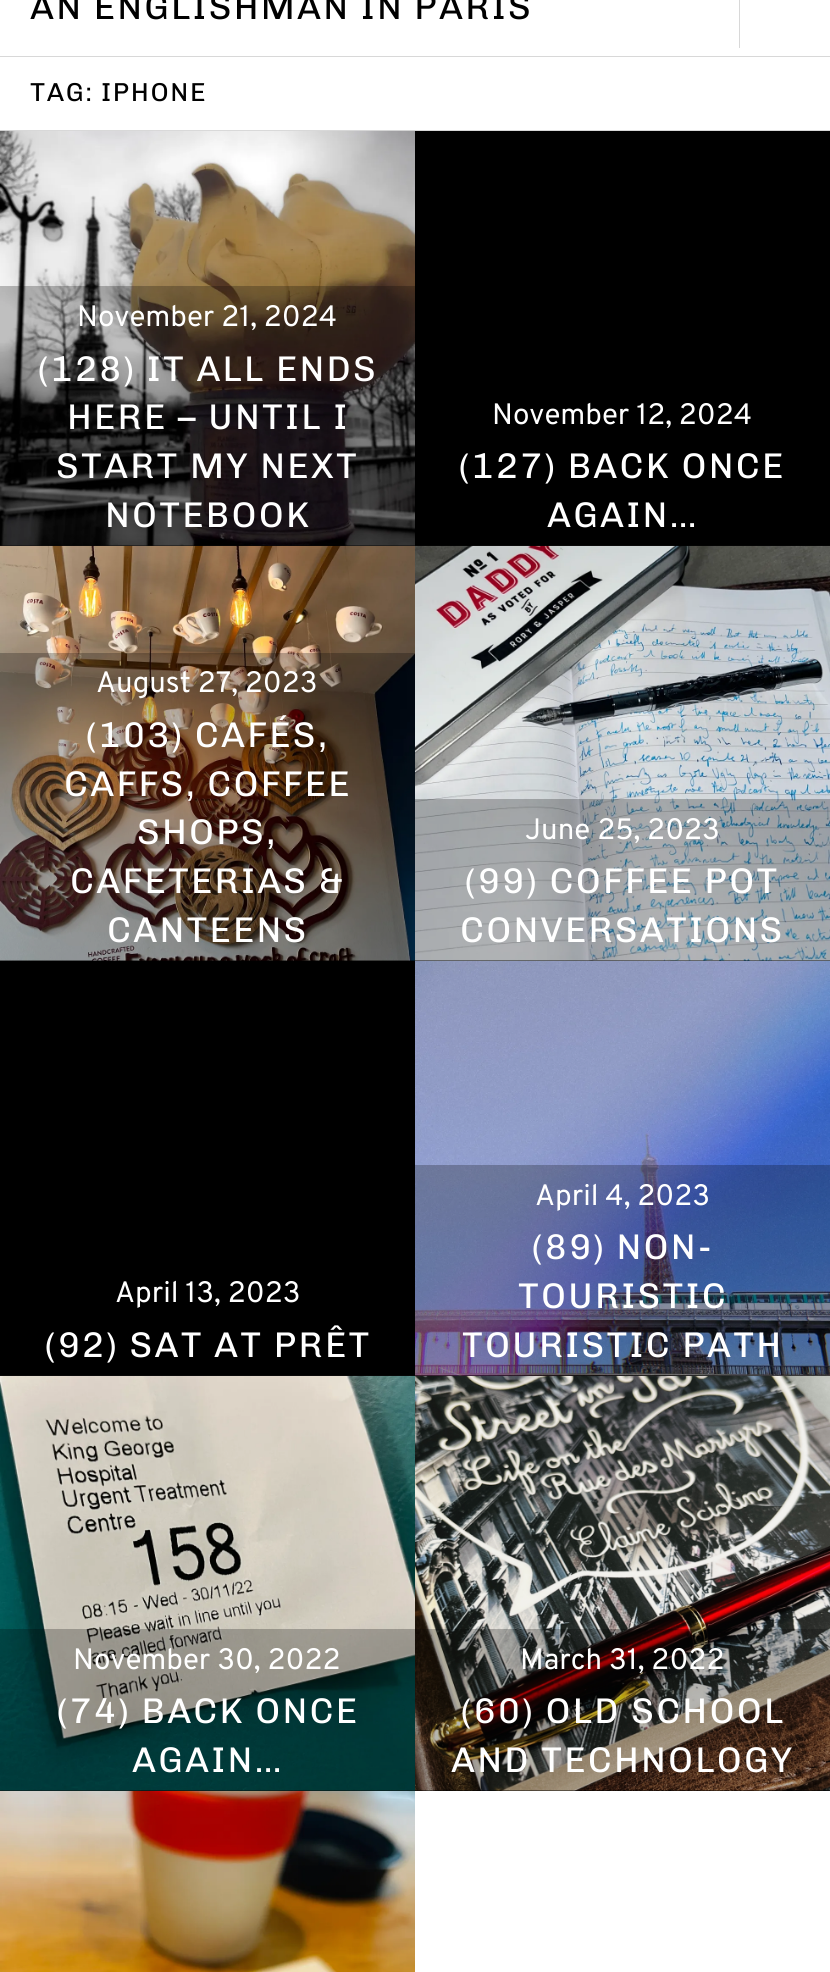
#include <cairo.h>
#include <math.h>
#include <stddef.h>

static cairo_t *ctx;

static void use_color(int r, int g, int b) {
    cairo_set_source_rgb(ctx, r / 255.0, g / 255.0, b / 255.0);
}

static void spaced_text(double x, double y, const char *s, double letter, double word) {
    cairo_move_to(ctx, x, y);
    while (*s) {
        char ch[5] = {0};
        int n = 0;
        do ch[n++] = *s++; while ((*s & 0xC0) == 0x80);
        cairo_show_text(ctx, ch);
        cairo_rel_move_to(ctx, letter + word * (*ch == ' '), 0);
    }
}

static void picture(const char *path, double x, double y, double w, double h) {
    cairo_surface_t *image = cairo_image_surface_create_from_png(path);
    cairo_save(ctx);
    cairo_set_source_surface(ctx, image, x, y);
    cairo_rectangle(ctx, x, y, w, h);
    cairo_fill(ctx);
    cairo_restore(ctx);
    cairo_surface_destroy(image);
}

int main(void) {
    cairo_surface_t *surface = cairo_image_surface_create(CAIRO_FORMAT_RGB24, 830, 1972);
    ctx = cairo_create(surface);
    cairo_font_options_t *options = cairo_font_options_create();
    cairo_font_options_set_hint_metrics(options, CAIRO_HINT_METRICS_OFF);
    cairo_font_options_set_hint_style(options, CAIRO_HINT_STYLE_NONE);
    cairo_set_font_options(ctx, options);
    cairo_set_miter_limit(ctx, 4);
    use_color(255, 255, 255);
    cairo_paint(ctx);
    use_color(216, 216, 216);
    cairo_rectangle(ctx, 0, 56, 830, 1);
    cairo_fill(ctx);
    cairo_select_font_face(ctx, "Chivo Medium", CAIRO_FONT_SLANT_NORMAL, CAIRO_FONT_WEIGHT_NORMAL);
    cairo_set_font_size(ctx, 35.75);
    use_color(0, 0, 0);
    spaced_text(30, 19, "AN ENGLISHMAN IN PARIS", 2.25, 0);
    use_color(216, 216, 216);
    cairo_rectangle(ctx, 739, 0, 1, 48);
    cairo_fill(ctx);
    cairo_rectangle(ctx, 0, 130, 830, 1);
    cairo_fill(ctx);
    cairo_set_font_size(ctx, 26);
    use_color(0, 0, 0);
    spaced_text(30, 101, "TAG: IPHONE", 1.6, 0);
    cairo_rectangle(ctx, 0, 545, 415, 1);
    cairo_fill(ctx);
    picture("img1.png", 0, 130, 415, 416);
    cairo_rectangle(ctx, 0, 960, 830, 1);
    cairo_fill(ctx);
    picture("img2.png", 0, 545, 415, 416);
    cairo_set_source_rgba(ctx, 0, 0, 0, 0.25);
    cairo_rectangle(ctx, 0, 286, 415, 260);
    cairo_fill(ctx);
    cairo_select_font_face(ctx, "Overpass", CAIRO_FONT_SLANT_NORMAL, CAIRO_FONT_WEIGHT_NORMAL);
    cairo_set_font_size(ctx, 29.5);
    use_color(255, 255, 255);
    cairo_move_to(ctx, 77, 326);
    cairo_show_text(ctx, "November 21, 2024");
    cairo_select_font_face(ctx, "Chivo Medium", CAIRO_FONT_SLANT_NORMAL, CAIRO_FONT_WEIGHT_NORMAL);
    cairo_set_font_size(ctx, 35.75);
    spaced_text(38, 381, "(128) IT ALL ENDS", 2.25, 0);
    spaced_text(67, 429, "HERE – UNTIL I", 2.25, 0);
    spaced_text(56, 478, "START MY NEXT", 2.25, 0);
    spaced_text(105, 527, "NOTEBOOK", 2.25, 0);
    use_color(0, 0, 0);
    cairo_rectangle(ctx, 415, 131, 415, 415);
    cairo_fill(ctx);
    picture("img3.png", 415, 545, 415, 416);
    cairo_set_source_rgba(ctx, 0, 0, 0, 0.25);
    cairo_rectangle(ctx, 472, 545, 202, 1);
    cairo_fill(ctx);
    cairo_select_font_face(ctx, "Overpass", CAIRO_FONT_SLANT_NORMAL, CAIRO_FONT_WEIGHT_NORMAL);
    cairo_set_font_size(ctx, 29.5);
    use_color(255, 255, 255);
    cairo_move_to(ctx, 492, 424);
    cairo_show_text(ctx, "November 12, 2024");
    cairo_select_font_face(ctx, "Chivo Medium", CAIRO_FONT_SLANT_NORMAL, CAIRO_FONT_WEIGHT_NORMAL);
    cairo_set_font_size(ctx, 35.75);
    spaced_text(459, 478, "(127) BACK ONCE", 2.25, 0);
    spaced_text(547, 527, "AGAIN…", 2.25, 0);
    cairo_set_source_rgba(ctx, 0, 0, 0, 0.25);
    cairo_rectangle(ctx, 0, 653, 415, 308);
    cairo_fill(ctx);
    cairo_select_font_face(ctx, "Overpass", CAIRO_FONT_SLANT_NORMAL, CAIRO_FONT_WEIGHT_NORMAL);
    cairo_set_font_size(ctx, 29.5);
    use_color(255, 255, 255);
    cairo_move_to(ctx, 96, 692);
    cairo_show_text(ctx, "August 27, 2023");
    cairo_select_font_face(ctx, "Chivo Medium", CAIRO_FONT_SLANT_NORMAL, CAIRO_FONT_WEIGHT_NORMAL);
    cairo_set_font_size(ctx, 35.75);
    spaced_text(86, 747, "(103) CAFÉS,", 2.25, 0);
    spaced_text(64, 796, "CAFFS, COFFEE", 2.25, 0);
    spaced_text(137, 844, "SHOPS,", 2.25, 0);
    spaced_text(70, 893, "CAFETERIAS &", 2.25, 0);
    spaced_text(107, 942, "CANTEENS", 2.25, 0);
    use_color(0, 0, 0);
    cairo_rectangle(ctx, 415, 1375, 415, 1);
    cairo_fill(ctx);
    picture("img4.png", 415, 960, 415, 416);
    cairo_set_source_rgba(ctx, 0, 0, 0, 0.25);
    cairo_rectangle(ctx, 415, 799, 415, 162);
    cairo_fill(ctx);
    cairo_select_font_face(ctx, "Overpass", CAIRO_FONT_SLANT_NORMAL, CAIRO_FONT_WEIGHT_NORMAL);
    cairo_set_font_size(ctx, 29.5);
    use_color(255, 255, 255);
    cairo_move_to(ctx, 525, 839);
    cairo_show_text(ctx, "June 25, 2023");
    cairo_select_font_face(ctx, "Chivo Medium", CAIRO_FONT_SLANT_NORMAL, CAIRO_FONT_WEIGHT_NORMAL);
    cairo_set_font_size(ctx, 35.75);
    spaced_text(465, 893, "(99) COFFEE POT", 2.25, 0);
    spaced_text(460, 942, "CONVERSATIONS", 2.25, 0);
    use_color(0, 0, 0);
    cairo_rectangle(ctx, 0, 961, 415, 415);
    cairo_fill(ctx);
    cairo_rectangle(ctx, 0, 1790, 830, 1);
    cairo_fill(ctx);
    picture("img5.png", 0, 1375, 415, 416);
    cairo_set_source_rgba(ctx, 0, 0, 0, 0.25);
    cairo_rectangle(ctx, 0, 1375, 348, 1);
    cairo_fill(ctx);
    cairo_select_font_face(ctx, "Overpass", CAIRO_FONT_SLANT_NORMAL, CAIRO_FONT_WEIGHT_NORMAL);
    cairo_set_font_size(ctx, 29.5);
    use_color(255, 255, 255);
    cairo_move_to(ctx, 115, 1302);
    cairo_show_text(ctx, "April 13, 2023");
    cairo_select_font_face(ctx, "Chivo Medium", CAIRO_FONT_SLANT_NORMAL, CAIRO_FONT_WEIGHT_NORMAL);
    cairo_set_font_size(ctx, 35.75);
    spaced_text(45, 1357, "(92) SAT AT PRÊT", 2.25, 0);
    picture("img6.png", 415, 1375, 415, 416);
    cairo_set_source_rgba(ctx, 0, 0, 0, 0.25);
    cairo_rectangle(ctx, 415, 1165, 415, 211);
    cairo_fill(ctx);
    cairo_select_font_face(ctx, "Overpass", CAIRO_FONT_SLANT_NORMAL, CAIRO_FONT_WEIGHT_NORMAL);
    cairo_set_font_size(ctx, 29.5);
    use_color(255, 255, 255);
    cairo_move_to(ctx, 535, 1205);
    cairo_show_text(ctx, "April 4, 2023");
    cairo_select_font_face(ctx, "Chivo Medium", CAIRO_FONT_SLANT_NORMAL, CAIRO_FONT_WEIGHT_NORMAL);
    cairo_set_font_size(ctx, 35.75);
    spaced_text(532, 1259, "(89) NON-", 2.25, 0);
    spaced_text(518, 1308, "TOURISTIC", 2.25, 0);
    spaced_text(462, 1357, "TOURISTIC PATH", 2.25, 0);
    picture("img7.png", 0, 1790, 415, 182);
    cairo_set_source_rgba(ctx, 0, 0, 0, 0.25);
    cairo_rectangle(ctx, 0, 1629, 415, 162);
    cairo_fill(ctx);
    cairo_select_font_face(ctx, "Overpass", CAIRO_FONT_SLANT_NORMAL, CAIRO_FONT_WEIGHT_NORMAL);
    cairo_set_font_size(ctx, 29.5);
    use_color(255, 255, 255);
    cairo_move_to(ctx, 73, 1669);
    cairo_show_text(ctx, "November 30, 2022");
    cairo_select_font_face(ctx, "Chivo Medium", CAIRO_FONT_SLANT_NORMAL, CAIRO_FONT_WEIGHT_NORMAL);
    cairo_set_font_size(ctx, 35.75);
    spaced_text(57, 1723, "(74) BACK ONCE", 2.25, 0);
    spaced_text(132, 1772, "AGAIN…", 2.25, 0);
    cairo_set_source_rgba(ctx, 0, 0, 0, 0.25);
    cairo_rectangle(ctx, 415, 1629, 415, 162);
    cairo_fill(ctx);
    cairo_select_font_face(ctx, "Overpass", CAIRO_FONT_SLANT_NORMAL, CAIRO_FONT_WEIGHT_NORMAL);
    cairo_set_font_size(ctx, 29.5);
    use_color(255, 255, 255);
    cairo_move_to(ctx, 520, 1669);
    cairo_show_text(ctx, "March 31, 2022");
    cairo_select_font_face(ctx, "Chivo Medium", CAIRO_FONT_SLANT_NORMAL, CAIRO_FONT_WEIGHT_NORMAL);
    cairo_set_font_size(ctx, 35.75);
    spaced_text(461, 1723, "(60) OLD SCHOOL", 2.25, 0);
    spaced_text(451, 1772, "AND TECHNOLOGY", 2.25, 0);
    cairo_surface_write_to_png(surface, "result.png");
    cairo_font_options_destroy(options);
    cairo_destroy(ctx);
    cairo_surface_destroy(surface);
    return 0;
}
